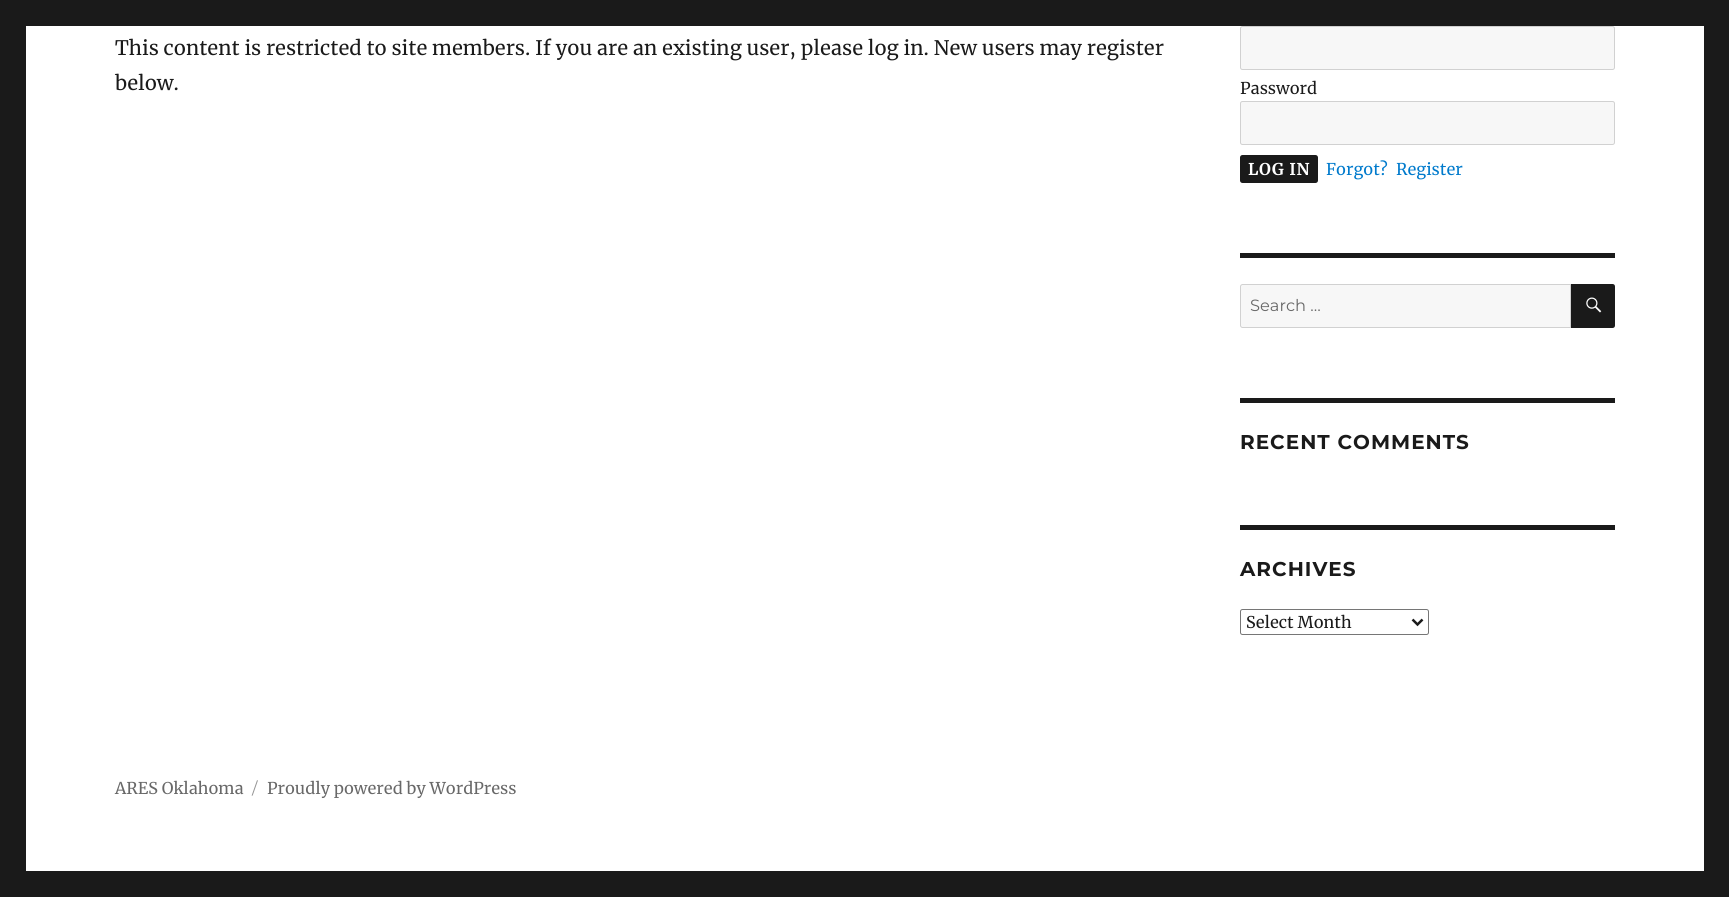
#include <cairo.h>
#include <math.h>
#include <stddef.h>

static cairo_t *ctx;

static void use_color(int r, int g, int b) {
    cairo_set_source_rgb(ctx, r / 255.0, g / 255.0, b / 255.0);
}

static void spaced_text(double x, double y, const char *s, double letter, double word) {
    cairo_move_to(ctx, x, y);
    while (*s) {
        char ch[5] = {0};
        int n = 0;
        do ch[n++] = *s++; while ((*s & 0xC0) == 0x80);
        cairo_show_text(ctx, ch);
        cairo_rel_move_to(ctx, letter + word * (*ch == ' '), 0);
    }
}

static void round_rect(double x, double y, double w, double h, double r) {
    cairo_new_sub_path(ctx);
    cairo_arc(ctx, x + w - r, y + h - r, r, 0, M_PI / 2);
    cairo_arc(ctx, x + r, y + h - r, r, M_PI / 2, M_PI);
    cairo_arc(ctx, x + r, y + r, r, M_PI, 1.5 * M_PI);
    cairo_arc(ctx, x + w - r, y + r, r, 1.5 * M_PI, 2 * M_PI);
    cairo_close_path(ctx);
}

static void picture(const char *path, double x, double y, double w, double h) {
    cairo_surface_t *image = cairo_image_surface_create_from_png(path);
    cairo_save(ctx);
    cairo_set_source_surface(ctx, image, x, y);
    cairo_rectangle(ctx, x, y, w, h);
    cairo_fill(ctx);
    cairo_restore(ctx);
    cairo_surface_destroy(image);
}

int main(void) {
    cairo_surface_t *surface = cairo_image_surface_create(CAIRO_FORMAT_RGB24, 1729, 897);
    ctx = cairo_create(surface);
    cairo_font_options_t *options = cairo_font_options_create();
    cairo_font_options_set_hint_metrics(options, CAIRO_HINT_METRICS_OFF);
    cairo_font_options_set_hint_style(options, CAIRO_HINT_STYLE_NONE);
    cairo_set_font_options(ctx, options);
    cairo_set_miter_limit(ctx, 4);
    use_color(26, 26, 26);
    cairo_paint(ctx);
    use_color(255, 255, 255);
    cairo_rectangle(ctx, 26, 26, 1678, 845);
    cairo_fill(ctx);
    cairo_select_font_face(ctx, "Merriweather", CAIRO_FONT_SLANT_NORMAL, CAIRO_FONT_WEIGHT_NORMAL);
    cairo_set_font_size(ctx, 20);
    use_color(26, 26, 26);
    cairo_move_to(ctx, 115, 55);
    cairo_show_text(ctx, "This content is restricted to site members. If you are an existing user, please log in. New users may register");
    cairo_move_to(ctx, 115, 90);
    cairo_show_text(ctx, "below.");
    use_color(247, 247, 247);
    round_rect(1240.5, 26.5, 374, 43, 2);
    cairo_fill_preserve(ctx);
    use_color(209, 209, 209);
    cairo_set_line_width(ctx, 1);
    cairo_stroke(ctx);
    cairo_set_font_size(ctx, 16.25);
    use_color(26, 26, 26);
    cairo_move_to(ctx, 1240, 94);
    cairo_show_text(ctx, "Password");
    use_color(247, 247, 247);
    round_rect(1240.5, 101.5, 374, 43, 2);
    cairo_fill_preserve(ctx);
    use_color(209, 209, 209);
    cairo_stroke(ctx);
    use_color(26, 26, 26);
    round_rect(1240, 155, 78, 28, 2.5);
    cairo_fill(ctx);
    cairo_select_font_face(ctx, "Merriweather", CAIRO_FONT_SLANT_NORMAL, CAIRO_FONT_WEIGHT_BOLD);
    use_color(255, 255, 255);
    spaced_text(1248, 175, "LOG IN", 0.75, 0);
    cairo_select_font_face(ctx, "Merriweather", CAIRO_FONT_SLANT_NORMAL, CAIRO_FONT_WEIGHT_NORMAL);
    use_color(0, 122, 204);
    cairo_move_to(ctx, 1326, 175);
    cairo_show_text(ctx, "Forgot?");
    cairo_move_to(ctx, 1396, 175);
    cairo_show_text(ctx, "Register");
    use_color(26, 26, 26);
    cairo_rectangle(ctx, 1240, 253, 375, 5);
    cairo_fill(ctx);
    use_color(247, 247, 247);
    cairo_new_path(ctx);
    cairo_move_to(ctx, 1242.5, 284.5);
    cairo_line_to(ctx, 1570.5, 284.5);
    cairo_line_to(ctx, 1570.5, 327.5);
    cairo_line_to(ctx, 1242.5, 327.5);
    cairo_curve_to(ctx, 1241.5, 327.5, 1240.5, 326.5, 1240.5, 325.5);
    cairo_line_to(ctx, 1240.5, 286.5);
    cairo_curve_to(ctx, 1240.5, 285.5, 1241.5, 284.5, 1242.5, 284.5);
    cairo_close_path(ctx);
    cairo_fill_preserve(ctx);
    use_color(209, 209, 209);
    cairo_stroke(ctx);
    cairo_select_font_face(ctx, "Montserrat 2 Thin", CAIRO_FONT_SLANT_NORMAL, CAIRO_FONT_WEIGHT_NORMAL);
    use_color(104, 104, 104);
    cairo_move_to(ctx, 1250, 311);
    cairo_show_text(ctx, "Search …");
    use_color(26, 26, 26);
    cairo_new_path(ctx);
    cairo_move_to(ctx, 1571, 284);
    cairo_line_to(ctx, 1612.5, 284);
    cairo_curve_to(ctx, 1614, 284, 1615, 285, 1615, 286.5);
    cairo_line_to(ctx, 1615, 325.5);
    cairo_curve_to(ctx, 1615, 327, 1614, 328, 1612.5, 328);
    cairo_line_to(ctx, 1571, 328);
    cairo_close_path(ctx);
    cairo_fill(ctx);
    picture("img1.png", 1586, 297, 16, 16);
    cairo_rectangle(ctx, 1240, 398, 375, 5);
    cairo_fill(ctx);
    cairo_select_font_face(ctx, "Montserrat Thin", CAIRO_FONT_SLANT_NORMAL, CAIRO_FONT_WEIGHT_NORMAL);
    cairo_set_font_size(ctx, 20);
    spaced_text(1240, 449, "RECENT COMMENTS", 1, 0);
    cairo_rectangle(ctx, 1240, 525, 375, 5);
    cairo_fill(ctx);
    spaced_text(1240, 576, "ARCHIVES", 1, 0);
    round_rect(1240.5, 609.5, 188, 25, 2);
    use_color(118, 118, 118);
    cairo_stroke(ctx);
    cairo_new_path(ctx);
    cairo_move_to(ctx, 1412.5, 619.5);
    cairo_line_to(ctx, 1417.5, 624.5);
    cairo_line_to(ctx, 1422.5, 619.5);
    use_color(26, 26, 26);
    cairo_set_line_width(ctx, 2.5);
    cairo_stroke(ctx);
    cairo_select_font_face(ctx, "Merriweather", CAIRO_FONT_SLANT_NORMAL, CAIRO_FONT_WEIGHT_NORMAL);
    cairo_set_font_size(ctx, 16.25);
    cairo_move_to(ctx, 1246, 628);
    cairo_show_text(ctx, "Select Month");
    use_color(104, 104, 104);
    cairo_move_to(ctx, 115, 794);
    cairo_show_text(ctx, "ARES Oklahoma");
    cairo_select_font_face(ctx, "Montserrat 2 Thin", CAIRO_FONT_SLANT_NORMAL, CAIRO_FONT_WEIGHT_NORMAL);
    use_color(149, 149, 149);
    cairo_move_to(ctx, 252, 794);
    cairo_show_text(ctx, "/");
    cairo_select_font_face(ctx, "Merriweather", CAIRO_FONT_SLANT_NORMAL, CAIRO_FONT_WEIGHT_NORMAL);
    use_color(104, 104, 104);
    cairo_move_to(ctx, 267, 794);
    cairo_show_text(ctx, "Proudly powered by WordPress");
    cairo_surface_write_to_png(surface, "result.png");
    cairo_font_options_destroy(options);
    cairo_destroy(ctx);
    cairo_surface_destroy(surface);
    return 0;
}
